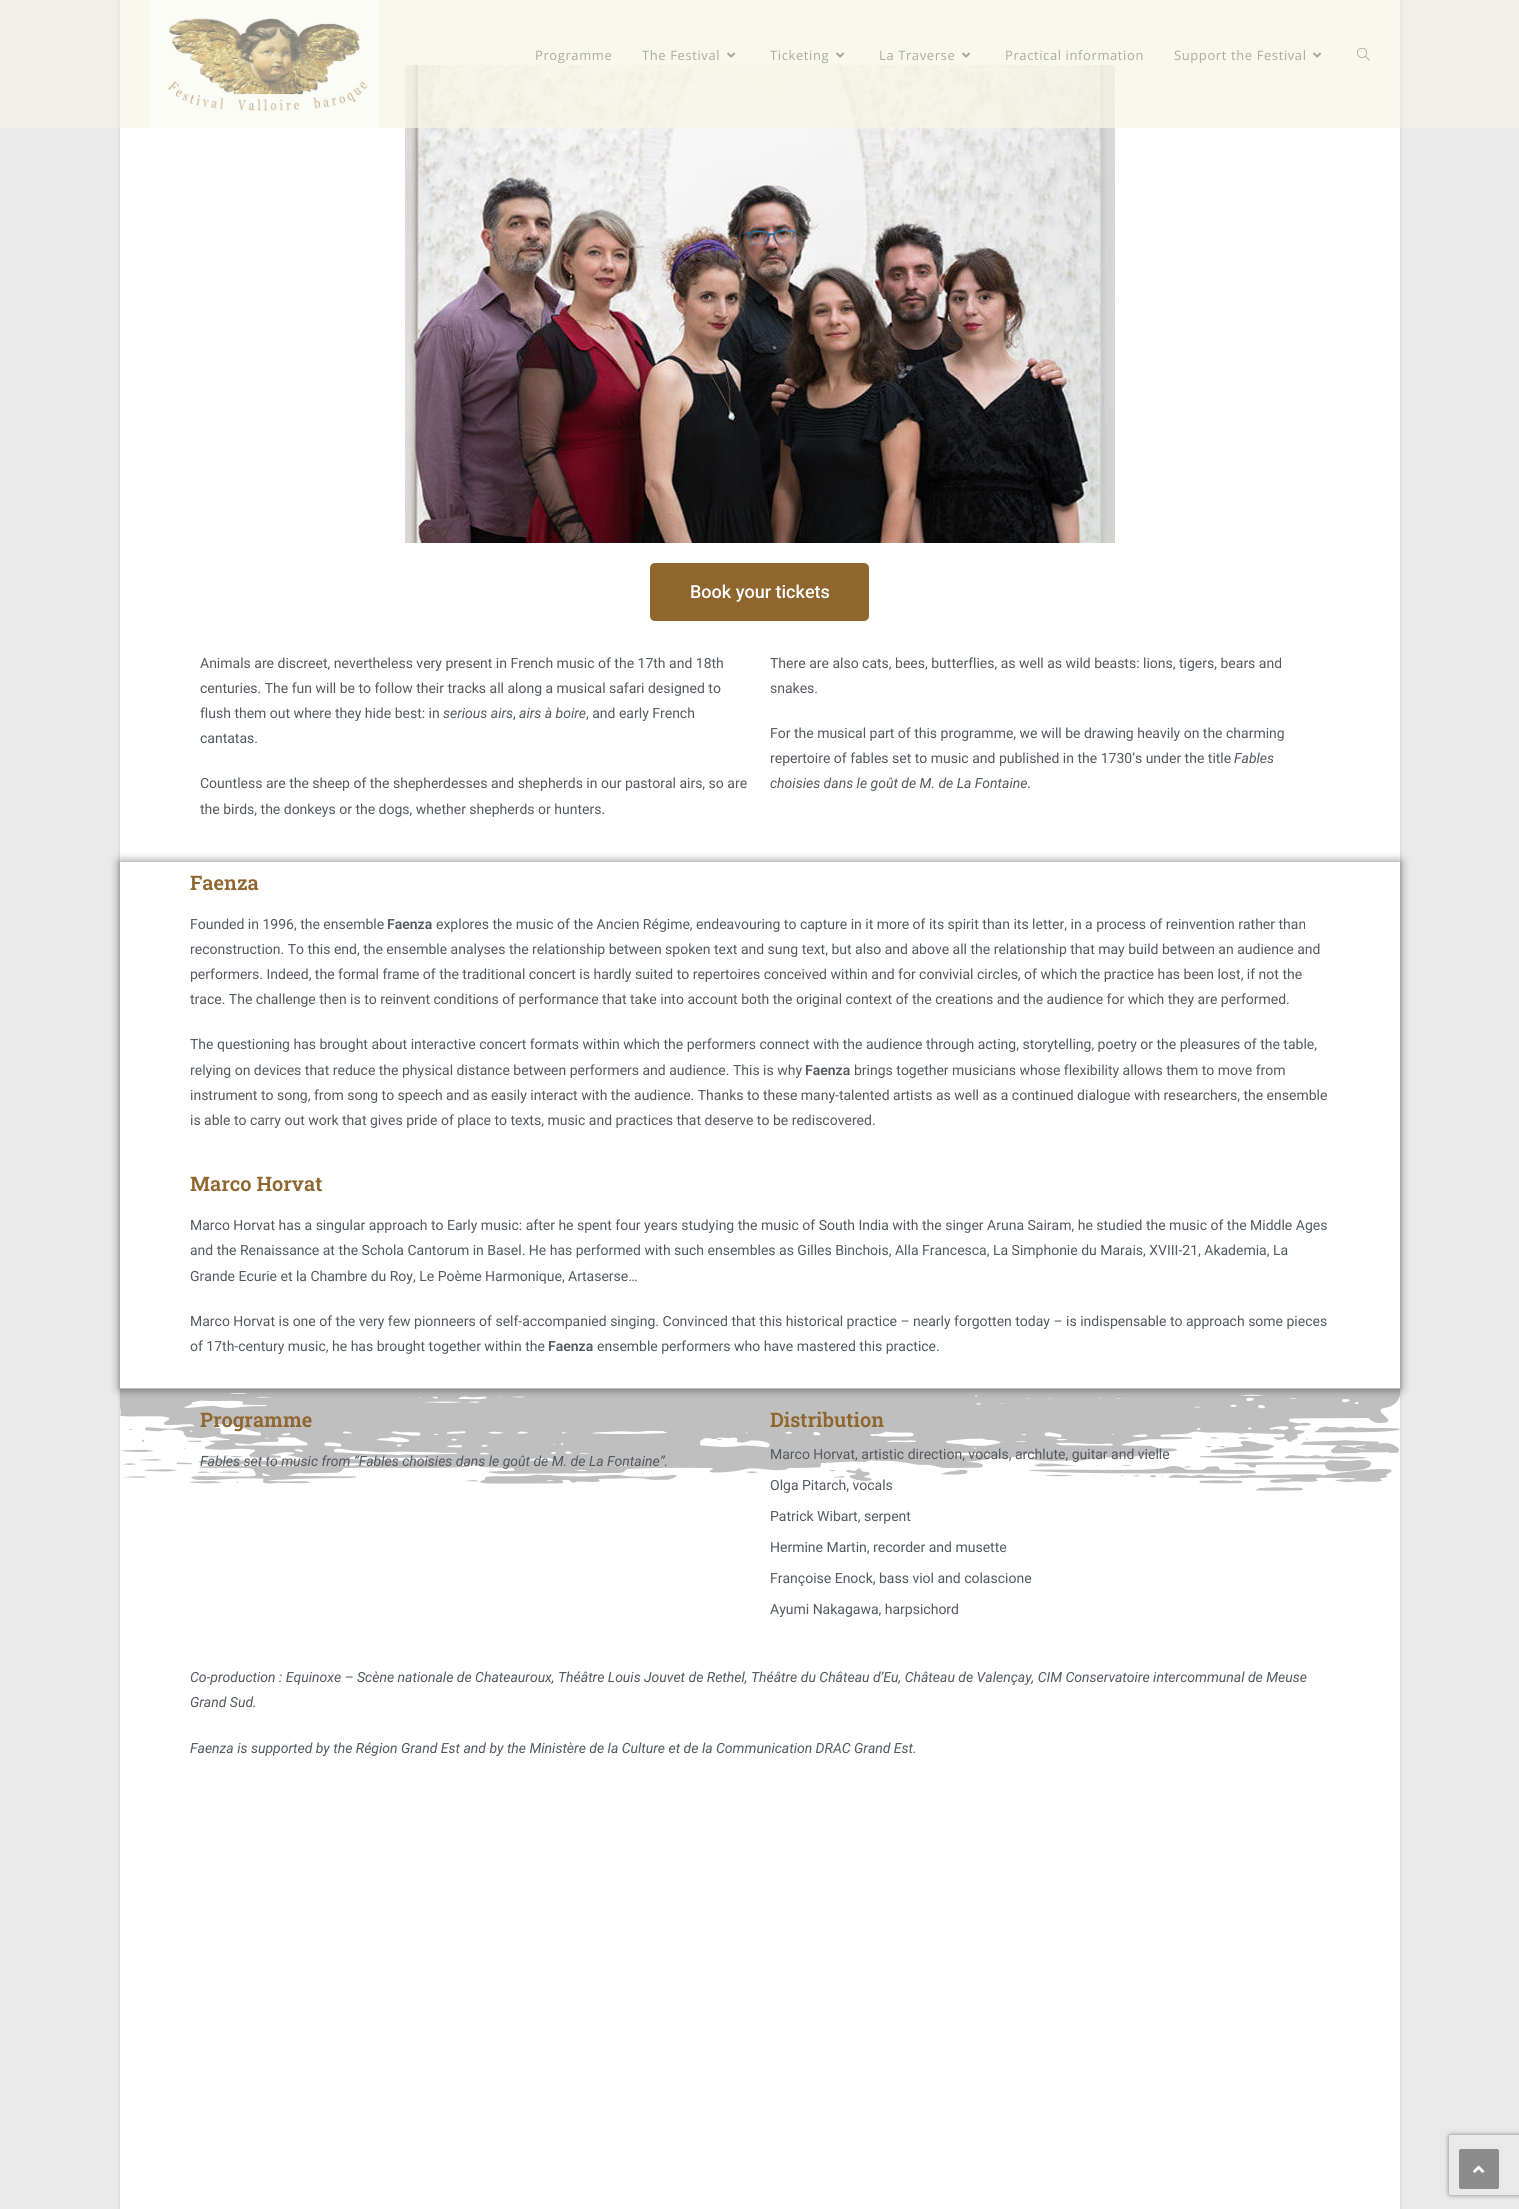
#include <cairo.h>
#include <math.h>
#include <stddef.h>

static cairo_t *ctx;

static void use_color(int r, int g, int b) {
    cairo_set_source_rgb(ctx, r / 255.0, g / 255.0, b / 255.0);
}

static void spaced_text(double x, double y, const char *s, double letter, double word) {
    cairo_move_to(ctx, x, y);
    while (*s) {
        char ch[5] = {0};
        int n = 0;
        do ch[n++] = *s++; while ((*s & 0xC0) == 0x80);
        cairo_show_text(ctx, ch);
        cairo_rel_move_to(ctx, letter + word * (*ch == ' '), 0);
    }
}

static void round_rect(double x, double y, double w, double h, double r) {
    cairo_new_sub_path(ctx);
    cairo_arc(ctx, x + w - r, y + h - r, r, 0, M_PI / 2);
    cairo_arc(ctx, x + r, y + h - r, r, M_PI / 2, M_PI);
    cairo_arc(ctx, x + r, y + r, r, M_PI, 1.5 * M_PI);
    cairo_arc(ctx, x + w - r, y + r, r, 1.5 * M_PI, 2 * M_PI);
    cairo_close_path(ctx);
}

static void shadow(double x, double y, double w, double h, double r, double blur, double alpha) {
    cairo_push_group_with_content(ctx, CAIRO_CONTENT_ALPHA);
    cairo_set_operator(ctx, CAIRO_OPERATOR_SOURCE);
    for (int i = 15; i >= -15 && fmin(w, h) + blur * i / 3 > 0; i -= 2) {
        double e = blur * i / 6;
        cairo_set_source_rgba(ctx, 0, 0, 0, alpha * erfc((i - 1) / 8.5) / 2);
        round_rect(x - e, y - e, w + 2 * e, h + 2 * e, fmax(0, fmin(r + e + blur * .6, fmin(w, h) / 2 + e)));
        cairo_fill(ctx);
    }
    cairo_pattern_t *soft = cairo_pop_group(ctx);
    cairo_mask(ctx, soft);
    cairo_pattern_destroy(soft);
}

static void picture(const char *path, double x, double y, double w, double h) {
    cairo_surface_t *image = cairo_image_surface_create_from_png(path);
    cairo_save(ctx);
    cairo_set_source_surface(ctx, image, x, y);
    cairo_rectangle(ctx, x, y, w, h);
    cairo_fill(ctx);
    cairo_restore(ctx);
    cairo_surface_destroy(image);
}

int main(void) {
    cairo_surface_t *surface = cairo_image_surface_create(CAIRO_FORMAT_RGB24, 1519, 2209);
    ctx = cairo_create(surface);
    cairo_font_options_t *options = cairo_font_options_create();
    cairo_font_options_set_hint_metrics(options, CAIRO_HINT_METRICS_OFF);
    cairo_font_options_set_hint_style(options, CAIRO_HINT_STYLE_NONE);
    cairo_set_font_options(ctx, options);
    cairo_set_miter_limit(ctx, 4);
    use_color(233, 233, 233);
    cairo_paint(ctx);
    use_color(0, 0, 0);
    shadow(120, -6, 1280, 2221, 0, 2, 0.15);
    use_color(255, 255, 255);
    cairo_rectangle(ctx, 120, 0, 1280, 2209);
    cairo_fill(ctx);
    picture("img4.png", 405, 65, 710, 478);
    cairo_set_source_rgba(ctx, 0.969, 0.961, 0.906, 0.5);
    cairo_rectangle(ctx, 0, 0, 1519, 128);
    cairo_fill(ctx);
    cairo_rectangle(ctx, 120, 0, 1280, 128);
    cairo_fill(ctx);
    picture("img1.png", 150, 0, 229, 128);
    cairo_select_font_face(ctx, "Open Sans", CAIRO_FONT_SLANT_NORMAL, CAIRO_FONT_WEIGHT_NORMAL);
    cairo_set_font_size(ctx, 13);
    use_color(170, 170, 170);
    spaced_text(535, 60, "Programme", 0.6, 0);
    spaced_text(642, 60, "The Festival", 0.6, 0);
    picture("img2.png", 727, 52, 9, 6);
    spaced_text(770, 60, "Ticketing", 0.6, 0);
    picture("img2.png", 836, 52, 9, 6);
    spaced_text(879, 60, "La Traverse", 0.6, 0);
    picture("img2.png", 962, 52, 9, 6);
    spaced_text(1005, 60, "Practical information", 0.6, 0);
    spaced_text(1174, 60, "Support the Festival", 0.6, 0);
    picture("img2.png", 1313, 52, 9, 6);
    picture("img3.png", 1357, 47, 13, 14);
    use_color(143, 102, 46);
    round_rect(650, 563, 219, 58, 5);
    cairo_fill(ctx);
    cairo_select_font_face(ctx, "Roboto Medium", CAIRO_FONT_SLANT_NORMAL, CAIRO_FONT_WEIGHT_NORMAL);
    cairo_set_font_size(ctx, 18);
    use_color(255, 255, 255);
    cairo_move_to(ctx, 690, 598);
    cairo_show_text(ctx, "Book your tickets");
    cairo_select_font_face(ctx, "Roboto", CAIRO_FONT_SLANT_NORMAL, CAIRO_FONT_WEIGHT_NORMAL);
    cairo_set_font_size(ctx, 14);
    use_color(84, 89, 95);
    cairo_move_to(ctx, 200, 668);
    cairo_show_text(ctx, "Animals are discreet, nevertheless very present in French music of the 17th and 18th");
    cairo_move_to(ctx, 200, 693);
    cairo_show_text(ctx, "centuries. The fun will be to follow their tracks all along a musical safari designed to");
    cairo_move_to(ctx, 200, 718);
    cairo_show_text(ctx, "flush them out where they hide best: in");
    cairo_select_font_face(ctx, "Roboto", CAIRO_FONT_SLANT_ITALIC, CAIRO_FONT_WEIGHT_NORMAL);
    cairo_move_to(ctx, 443, 718);
    cairo_show_text(ctx, "serious airs");
    cairo_select_font_face(ctx, "Roboto", CAIRO_FONT_SLANT_NORMAL, CAIRO_FONT_WEIGHT_NORMAL);
    cairo_move_to(ctx, 513, 718);
    cairo_show_text(ctx, ",");
    cairo_select_font_face(ctx, "Roboto", CAIRO_FONT_SLANT_ITALIC, CAIRO_FONT_WEIGHT_NORMAL);
    cairo_move_to(ctx, 519, 718);
    cairo_show_text(ctx, "airs à boire");
    cairo_select_font_face(ctx, "Roboto", CAIRO_FONT_SLANT_NORMAL, CAIRO_FONT_WEIGHT_NORMAL);
    cairo_move_to(ctx, 586, 718);
    cairo_show_text(ctx, ", and early French");
    cairo_move_to(ctx, 200, 743);
    cairo_show_text(ctx, "cantatas.");
    cairo_move_to(ctx, 200, 788);
    cairo_show_text(ctx, "Countless are the sheep of the shepherdesses and shepherds in our pastoral airs, so are");
    cairo_move_to(ctx, 200, 814);
    cairo_show_text(ctx, "the birds, the donkeys or the dogs, whether shepherds or hunters.");
    cairo_move_to(ctx, 770, 668);
    cairo_show_text(ctx, "There are also cats, bees, butterflies, as well as wild beasts: lions, tigers, bears and");
    cairo_move_to(ctx, 770, 693);
    cairo_show_text(ctx, "snakes.");
    cairo_move_to(ctx, 770, 738);
    cairo_show_text(ctx, "For the musical part of this programme, we will be drawing heavily on the charming");
    cairo_move_to(ctx, 770, 763);
    cairo_show_text(ctx, "repertoire of fables set to music and published in the 1730’s under the title");
    cairo_select_font_face(ctx, "Roboto", CAIRO_FONT_SLANT_ITALIC, CAIRO_FONT_WEIGHT_NORMAL);
    cairo_move_to(ctx, 1234, 763);
    cairo_show_text(ctx, "Fables");
    cairo_move_to(ctx, 770, 788);
    cairo_show_text(ctx, "choisies dans le goût de M. de La Fontaine");
    cairo_select_font_face(ctx, "Roboto", CAIRO_FONT_SLANT_NORMAL, CAIRO_FONT_WEIGHT_NORMAL);
    cairo_move_to(ctx, 1027, 788);
    cairo_show_text(ctx, ".");
    cairo_save(ctx);
    cairo_set_fill_rule(ctx, CAIRO_FILL_RULE_EVEN_ODD);
    cairo_new_path(ctx);
    cairo_move_to(ctx, 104, 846);
    cairo_line_to(ctx, 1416, 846);
    cairo_line_to(ctx, 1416, 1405);
    cairo_line_to(ctx, 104, 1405);
    cairo_close_path(ctx);
    cairo_move_to(ctx, 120, 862);
    cairo_line_to(ctx, 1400, 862);
    cairo_line_to(ctx, 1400, 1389);
    cairo_line_to(ctx, 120, 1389);
    cairo_close_path(ctx);
    cairo_clip(ctx);
    use_color(0, 0, 0);
    shadow(120, 862, 1280, 527, 0, 5, 0.5);
    cairo_restore(ctx);
    cairo_select_font_face(ctx, "Roboto Slab SemiBold", CAIRO_FONT_SLANT_NORMAL, CAIRO_FONT_WEIGHT_NORMAL);
    cairo_set_font_size(ctx, 20);
    use_color(143, 102, 46);
    cairo_move_to(ctx, 190, 890);
    cairo_show_text(ctx, "Faenza");
    cairo_select_font_face(ctx, "Roboto", CAIRO_FONT_SLANT_NORMAL, CAIRO_FONT_WEIGHT_NORMAL);
    cairo_set_font_size(ctx, 14);
    use_color(84, 89, 95);
    cairo_move_to(ctx, 190, 929);
    cairo_show_text(ctx, "Founded in 1996, the ensemble");
    cairo_select_font_face(ctx, "Roboto SemiBold", CAIRO_FONT_SLANT_NORMAL, CAIRO_FONT_WEIGHT_NORMAL);
    cairo_move_to(ctx, 387, 929);
    cairo_show_text(ctx, "Faenza");
    cairo_select_font_face(ctx, "Roboto", CAIRO_FONT_SLANT_NORMAL, CAIRO_FONT_WEIGHT_NORMAL);
    cairo_move_to(ctx, 436, 929);
    cairo_show_text(ctx, "explores the music of the Ancien Régime, endeavouring to capture in it more of its spirit than its letter, in a process of reinvention rather than");
    cairo_move_to(ctx, 190, 954);
    cairo_show_text(ctx, "reconstruction. To this end, the ensemble analyses the relationship between spoken text and sung text, but also and above all the relationship that may build between an audience and");
    cairo_move_to(ctx, 190, 979);
    cairo_show_text(ctx, "performers. Indeed, the formal frame of the traditional concert is hardly suited to repertoires conceived within and for convivial circles, of which the practice has been lost, if not the");
    cairo_move_to(ctx, 190, 1004);
    cairo_show_text(ctx, "trace. The challenge then is to reinvent conditions of performance that take into account both the original context of the creations and the audience for which they are performed.");
    cairo_move_to(ctx, 190, 1049);
    cairo_show_text(ctx, "The questioning has brought about interactive concert formats within which the performers connect with the audience through acting, storytelling, poetry or the pleasures of the table,");
    cairo_move_to(ctx, 190, 1075);
    cairo_show_text(ctx, "relying on devices that reduce the physical distance between performers and audience. This is why");
    cairo_select_font_face(ctx, "Roboto SemiBold", CAIRO_FONT_SLANT_NORMAL, CAIRO_FONT_WEIGHT_NORMAL);
    cairo_move_to(ctx, 805, 1075);
    cairo_show_text(ctx, "Faenza");
    cairo_select_font_face(ctx, "Roboto", CAIRO_FONT_SLANT_NORMAL, CAIRO_FONT_WEIGHT_NORMAL);
    cairo_move_to(ctx, 854, 1075);
    cairo_show_text(ctx, "brings together musicians whose flexibility allows them to move from");
    cairo_move_to(ctx, 190, 1100);
    cairo_show_text(ctx, "instrument to song, from song to speech and as easily interact with the audience. Thanks to these many-talented artists as well as a continued dialogue with researchers, the ensemble");
    cairo_move_to(ctx, 190, 1125);
    cairo_show_text(ctx, "is able to carry out work that gives pride of place to texts, music and practices that deserve to be rediscovered.");
    cairo_select_font_face(ctx, "Roboto Slab SemiBold", CAIRO_FONT_SLANT_NORMAL, CAIRO_FONT_WEIGHT_NORMAL);
    cairo_set_font_size(ctx, 20);
    use_color(143, 102, 46);
    cairo_move_to(ctx, 190, 1191);
    cairo_show_text(ctx, "Marco Horvat");
    cairo_select_font_face(ctx, "Roboto", CAIRO_FONT_SLANT_NORMAL, CAIRO_FONT_WEIGHT_NORMAL);
    cairo_set_font_size(ctx, 14);
    use_color(84, 89, 95);
    cairo_move_to(ctx, 190, 1230);
    cairo_show_text(ctx, "Marco Horvat has a singular approach to Early music: after he spent four years studying the music of South India with the singer Aruna Sairam, he studied the music of the Middle Ages");
    cairo_move_to(ctx, 190, 1255);
    cairo_show_text(ctx, "and the Renaissance at the Schola Cantorum in Basel. He has performed with such ensembles as Gilles Binchois, Alla Francesca, La Simphonie du Marais, XVIII-21, Akademia, La");
    cairo_move_to(ctx, 190, 1281);
    cairo_show_text(ctx, "Grande Ecurie et la Chambre du Roy, Le Poème Harmonique, Artaserse…");
    cairo_move_to(ctx, 190, 1326);
    cairo_show_text(ctx, "Marco Horvat is one of the very few pionneers of self-accompanied singing. Convinced that this historical practice – nearly forgotten today – is indispensable to approach some pieces");
    cairo_move_to(ctx, 190, 1351);
    cairo_show_text(ctx, "of 17th-century music, he has brought together within the");
    cairo_select_font_face(ctx, "Roboto SemiBold", CAIRO_FONT_SLANT_NORMAL, CAIRO_FONT_WEIGHT_NORMAL);
    cairo_move_to(ctx, 548, 1351);
    cairo_show_text(ctx, "Faenza");
    cairo_select_font_face(ctx, "Roboto", CAIRO_FONT_SLANT_NORMAL, CAIRO_FONT_WEIGHT_NORMAL);
    cairo_move_to(ctx, 597, 1351);
    cairo_show_text(ctx, "ensemble performers who have mastered this practice.");
    picture("img5.png", 120, 1388, 1280, 104);
    cairo_select_font_face(ctx, "Roboto Slab SemiBold", CAIRO_FONT_SLANT_NORMAL, CAIRO_FONT_WEIGHT_NORMAL);
    cairo_set_font_size(ctx, 20);
    use_color(143, 102, 46);
    cairo_move_to(ctx, 200, 1427);
    cairo_show_text(ctx, "Programme");
    cairo_select_font_face(ctx, "Roboto", CAIRO_FONT_SLANT_ITALIC, CAIRO_FONT_WEIGHT_NORMAL);
    cairo_set_font_size(ctx, 14);
    use_color(84, 89, 95);
    cairo_move_to(ctx, 200, 1466);
    cairo_show_text(ctx, "Fables set to music from “Fables choisies dans le goût de M. de La Fontaine”.");
    cairo_select_font_face(ctx, "Roboto Slab SemiBold", CAIRO_FONT_SLANT_NORMAL, CAIRO_FONT_WEIGHT_NORMAL);
    cairo_set_font_size(ctx, 20);
    use_color(143, 102, 46);
    cairo_move_to(ctx, 770, 1427);
    cairo_show_text(ctx, "Distribution");
    cairo_select_font_face(ctx, "Roboto", CAIRO_FONT_SLANT_NORMAL, CAIRO_FONT_WEIGHT_NORMAL);
    cairo_set_font_size(ctx, 14);
    use_color(84, 89, 95);
    cairo_move_to(ctx, 770, 1459);
    cairo_show_text(ctx, "Marco Horvat, artistic direction, vocals, archlute, guitar and vielle");
    cairo_move_to(ctx, 770, 1490);
    cairo_show_text(ctx, "Olga Pitarch, vocals");
    cairo_move_to(ctx, 770, 1521);
    cairo_show_text(ctx, "Patrick Wibart, serpent");
    cairo_move_to(ctx, 770, 1552);
    cairo_show_text(ctx, "Hermine Martin, recorder and musette");
    cairo_move_to(ctx, 770, 1583);
    cairo_show_text(ctx, "Françoise Enock, bass viol and colascione");
    cairo_move_to(ctx, 770, 1614);
    cairo_show_text(ctx, "Ayumi Nakagawa, harpsichord");
    cairo_select_font_face(ctx, "Roboto", CAIRO_FONT_SLANT_ITALIC, CAIRO_FONT_WEIGHT_NORMAL);
    cairo_move_to(ctx, 190, 1682);
    cairo_show_text(ctx, "Co-production : Equinoxe – Scène nationale de Chateauroux, Théâtre Louis Jouvet de Rethel, Théâtre du Château d’Eu, Château de Valençay, CIM Conservatoire intercommunal de Meuse");
    cairo_move_to(ctx, 190, 1707);
    cairo_show_text(ctx, "Grand Sud.");
    cairo_move_to(ctx, 190, 1753);
    cairo_show_text(ctx, "Faenza is supported by the Région Grand Est and by the Ministère de la Culture et de la Communication DRAC Grand Est.");
    cairo_save(ctx);
    cairo_set_fill_rule(ctx, CAIRO_FILL_RULE_EVEN_ODD);
    cairo_new_path(ctx);
    cairo_move_to(ctx, 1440, 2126);
    cairo_line_to(ctx, 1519, 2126);
    cairo_line_to(ctx, 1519, 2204);
    cairo_line_to(ctx, 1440, 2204);
    cairo_close_path(ctx);
    cairo_move_to(ctx, 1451, 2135);
    cairo_line_to(ctx, 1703, 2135);
    cairo_curve_to(ctx, 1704, 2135, 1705, 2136, 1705, 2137);
    cairo_line_to(ctx, 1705, 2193);
    cairo_curve_to(ctx, 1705, 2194, 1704, 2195, 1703, 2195);
    cairo_line_to(ctx, 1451, 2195);
    cairo_curve_to(ctx, 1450, 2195, 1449, 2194, 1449, 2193);
    cairo_line_to(ctx, 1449, 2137);
    cairo_curve_to(ctx, 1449, 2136, 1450, 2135, 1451, 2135);
    cairo_close_path(ctx);
    cairo_clip(ctx);
    use_color(128, 128, 128);
    shadow(1449, 2135, 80, 60, 2, 2.5, 1);
    cairo_restore(ctx);
    use_color(140, 140, 140);
    round_rect(1459, 2149, 40, 40, 2);
    cairo_fill(ctx);
    picture("img6.png", 1473, 2165, 12, 8);
    cairo_surface_write_to_png(surface, "result.png");
    cairo_font_options_destroy(options);
    cairo_destroy(ctx);
    cairo_surface_destroy(surface);
    return 0;
}
